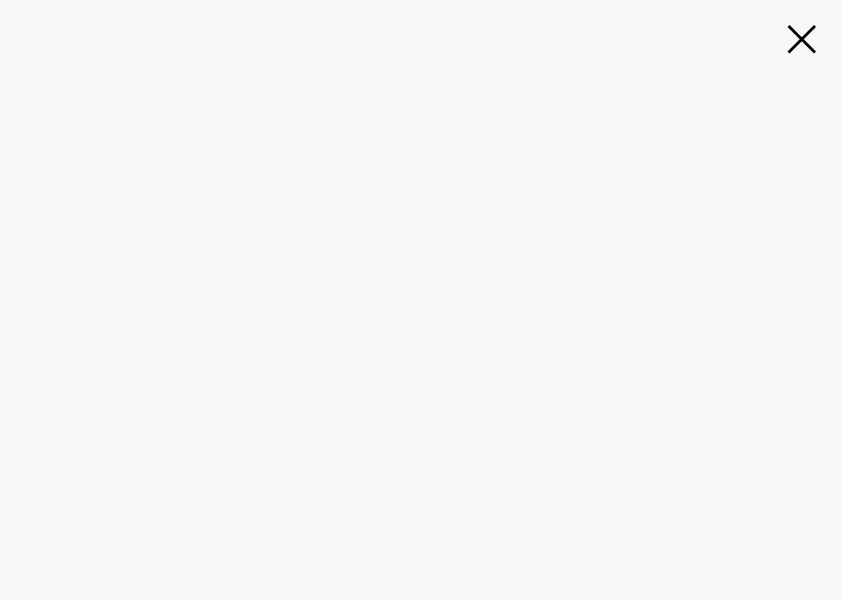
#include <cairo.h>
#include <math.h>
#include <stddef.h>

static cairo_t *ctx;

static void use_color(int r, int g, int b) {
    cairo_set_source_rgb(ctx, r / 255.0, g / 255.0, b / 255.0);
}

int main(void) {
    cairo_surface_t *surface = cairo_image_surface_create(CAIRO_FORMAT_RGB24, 841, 600);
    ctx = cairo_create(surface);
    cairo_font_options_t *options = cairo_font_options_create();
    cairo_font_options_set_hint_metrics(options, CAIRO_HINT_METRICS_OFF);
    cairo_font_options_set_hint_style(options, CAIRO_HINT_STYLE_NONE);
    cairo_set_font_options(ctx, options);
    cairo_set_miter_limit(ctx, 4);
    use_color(247, 247, 247);
    cairo_paint(ctx);
    use_color(0, 0, 0);
    cairo_set_fill_rule(ctx, CAIRO_FILL_RULE_EVEN_ODD);
    cairo_new_path(ctx);
    cairo_move_to(ctx, 787.5, 27);
    cairo_line_to(ctx, 789.5, 25);
    cairo_line_to(ctx, 816, 51.5);
    cairo_line_to(ctx, 814, 53.5);
    cairo_close_path(ctx);
    cairo_fill(ctx);
    cairo_new_path(ctx);
    cairo_move_to(ctx, 814, 25);
    cairo_line_to(ctx, 816, 27);
    cairo_line_to(ctx, 789.5, 53.5);
    cairo_line_to(ctx, 787.5, 51.5);
    cairo_close_path(ctx);
    cairo_fill(ctx);
    cairo_surface_write_to_png(surface, "result.png");
    cairo_font_options_destroy(options);
    cairo_destroy(ctx);
    cairo_surface_destroy(surface);
    return 0;
}
